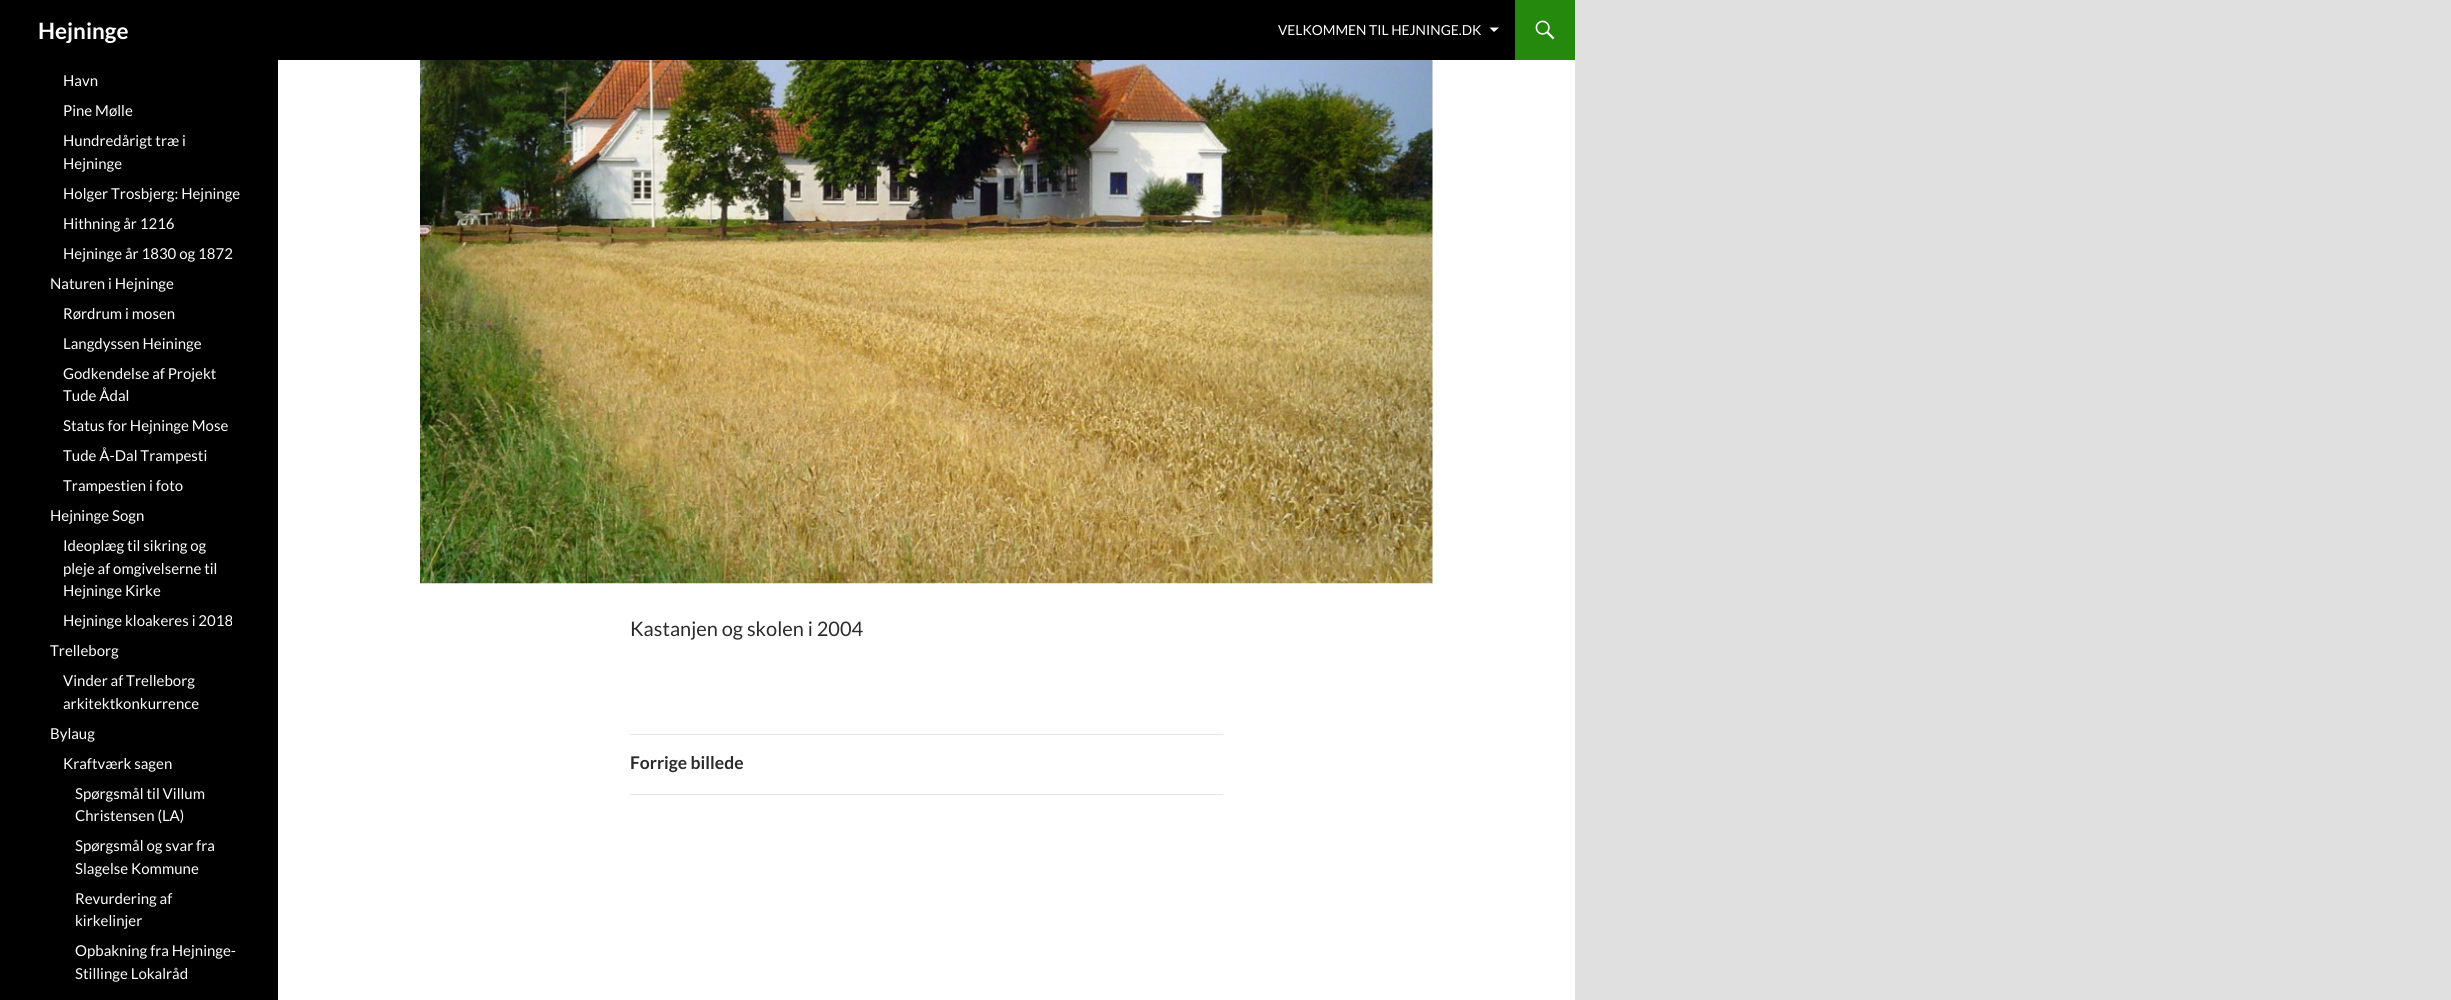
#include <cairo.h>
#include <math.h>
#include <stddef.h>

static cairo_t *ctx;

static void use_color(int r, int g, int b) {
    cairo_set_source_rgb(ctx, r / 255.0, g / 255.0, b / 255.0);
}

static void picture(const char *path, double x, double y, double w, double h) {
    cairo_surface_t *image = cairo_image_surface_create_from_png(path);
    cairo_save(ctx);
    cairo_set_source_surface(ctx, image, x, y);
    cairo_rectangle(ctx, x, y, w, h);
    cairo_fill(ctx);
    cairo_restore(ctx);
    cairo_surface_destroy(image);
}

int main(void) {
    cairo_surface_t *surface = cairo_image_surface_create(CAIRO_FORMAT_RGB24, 2451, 1000);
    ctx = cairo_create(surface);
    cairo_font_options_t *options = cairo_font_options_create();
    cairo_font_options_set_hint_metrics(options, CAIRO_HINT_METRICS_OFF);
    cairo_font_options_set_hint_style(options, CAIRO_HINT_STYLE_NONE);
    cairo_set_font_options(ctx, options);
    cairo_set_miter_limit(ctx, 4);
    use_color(224, 224, 224);
    cairo_paint(ctx);
    use_color(255, 255, 255);
    cairo_rectangle(ctx, 278, 60, 1297, 940);
    cairo_fill(ctx);
    use_color(0, 0, 0);
    cairo_rectangle(ctx, 0, 0, 1515, 60);
    cairo_fill(ctx);
    cairo_select_font_face(ctx, "Lato", CAIRO_FONT_SLANT_NORMAL, CAIRO_FONT_WEIGHT_BOLD);
    cairo_set_font_size(ctx, 22.5);
    use_color(255, 255, 255);
    cairo_move_to(ctx, 38, 39);
    cairo_show_text(ctx, "Hejninge");
    cairo_select_font_face(ctx, "Lato", CAIRO_FONT_SLANT_NORMAL, CAIRO_FONT_WEIGHT_NORMAL);
    cairo_set_font_size(ctx, 13.75);
    cairo_move_to(ctx, 1278, 35);
    cairo_show_text(ctx, "VELKOMMEN TIL HEJNINGE.DK");
    cairo_new_path(ctx);
    cairo_move_to(ctx, 1489.5, 27.5);
    cairo_line_to(ctx, 1494, 32);
    cairo_line_to(ctx, 1499, 27.5);
    cairo_close_path(ctx);
    cairo_fill(ctx);
    use_color(36, 137, 13);
    cairo_rectangle(ctx, 1515, 0, 60, 60);
    cairo_fill(ctx);
    picture("img1.png", 1535, 20, 20, 20);
    use_color(0, 0, 0);
    cairo_rectangle(ctx, 0, 60, 278, 940);
    cairo_fill(ctx);
    cairo_set_font_size(ctx, 15);
    use_color(255, 255, 255);
    cairo_move_to(ctx, 63, 86);
    cairo_show_text(ctx, "Havn");
    cairo_move_to(ctx, 63, 116);
    cairo_show_text(ctx, "Pine Mølle");
    cairo_move_to(ctx, 63, 146);
    cairo_show_text(ctx, "Hundredårigt træ i");
    cairo_move_to(ctx, 63, 169);
    cairo_show_text(ctx, "Hejninge");
    cairo_move_to(ctx, 63, 199);
    cairo_show_text(ctx, "Holger Trosbjerg: Hejninge");
    cairo_move_to(ctx, 63, 229);
    cairo_show_text(ctx, "Hithning år 1216");
    cairo_move_to(ctx, 63, 259);
    cairo_show_text(ctx, "Hejninge år 1830 og 1872");
    cairo_move_to(ctx, 50, 289);
    cairo_show_text(ctx, "Naturen i Hejninge");
    cairo_move_to(ctx, 63, 319);
    cairo_show_text(ctx, "Rørdrum i mosen");
    cairo_move_to(ctx, 63, 349);
    cairo_show_text(ctx, "Langdyssen Heininge");
    cairo_move_to(ctx, 63, 379);
    cairo_show_text(ctx, "Godkendelse af Projekt");
    cairo_move_to(ctx, 63, 401);
    cairo_show_text(ctx, "Tude Ådal");
    cairo_move_to(ctx, 63, 431);
    cairo_show_text(ctx, "Status for Hejninge Mose");
    cairo_move_to(ctx, 63, 461);
    cairo_show_text(ctx, "Tude Å-Dal Trampesti");
    cairo_move_to(ctx, 63, 491);
    cairo_show_text(ctx, "Trampestien i foto");
    cairo_move_to(ctx, 50, 521);
    cairo_show_text(ctx, "Hejninge Sogn");
    cairo_move_to(ctx, 63, 551);
    cairo_show_text(ctx, "Ideoplæg til sikring og");
    cairo_move_to(ctx, 63, 574);
    cairo_show_text(ctx, "pleje af omgivelserne til");
    cairo_move_to(ctx, 63, 596);
    cairo_show_text(ctx, "Hejninge Kirke");
    cairo_move_to(ctx, 63, 626);
    cairo_show_text(ctx, "Hejninge kloakeres i 2018");
    cairo_move_to(ctx, 50, 656);
    cairo_show_text(ctx, "Trelleborg");
    cairo_move_to(ctx, 63, 686);
    cairo_show_text(ctx, "Vinder af Trelleborg");
    cairo_move_to(ctx, 63, 709);
    cairo_show_text(ctx, "arkitektkonkurrence");
    cairo_move_to(ctx, 50, 739);
    cairo_show_text(ctx, "Bylaug");
    cairo_move_to(ctx, 63, 769);
    cairo_show_text(ctx, "Kraftværk sagen");
    cairo_move_to(ctx, 75, 799);
    cairo_show_text(ctx, "Spørgsmål til Villum");
    cairo_move_to(ctx, 75, 821);
    cairo_show_text(ctx, "Christensen (LA)");
    cairo_move_to(ctx, 75, 851);
    cairo_show_text(ctx, "Spørgsmål og svar fra");
    cairo_move_to(ctx, 75, 874);
    cairo_show_text(ctx, "Slagelse Kommune");
    cairo_move_to(ctx, 75, 904);
    cairo_show_text(ctx, "Revurdering af");
    cairo_move_to(ctx, 75, 926);
    cairo_show_text(ctx, "kirkelinjer");
    cairo_move_to(ctx, 75, 956);
    cairo_show_text(ctx, "Opbakning fra Hejninge-");
    cairo_move_to(ctx, 75, 979);
    cairo_show_text(ctx, "Stillinge Lokalråd");
    picture("img2.png", 420, 60, 1013, 524);
    cairo_set_font_size(ctx, 20);
    use_color(43, 43, 43);
    cairo_move_to(ctx, 630, 636);
    cairo_show_text(ctx, "Kastanjen og skolen i 2004");
    use_color(230, 230, 230);
    cairo_rectangle(ctx, 630, 734, 593, 1);
    cairo_fill(ctx);
    cairo_rectangle(ctx, 630, 794, 593, 1);
    cairo_fill(ctx);
    cairo_select_font_face(ctx, "Lato", CAIRO_FONT_SLANT_NORMAL, CAIRO_FONT_WEIGHT_BOLD);
    cairo_set_font_size(ctx, 17.5);
    use_color(43, 43, 43);
    cairo_move_to(ctx, 630, 769);
    cairo_show_text(ctx, "Forrige billede");
    cairo_surface_write_to_png(surface, "result.png");
    cairo_font_options_destroy(options);
    cairo_destroy(ctx);
    cairo_surface_destroy(surface);
    return 0;
}
